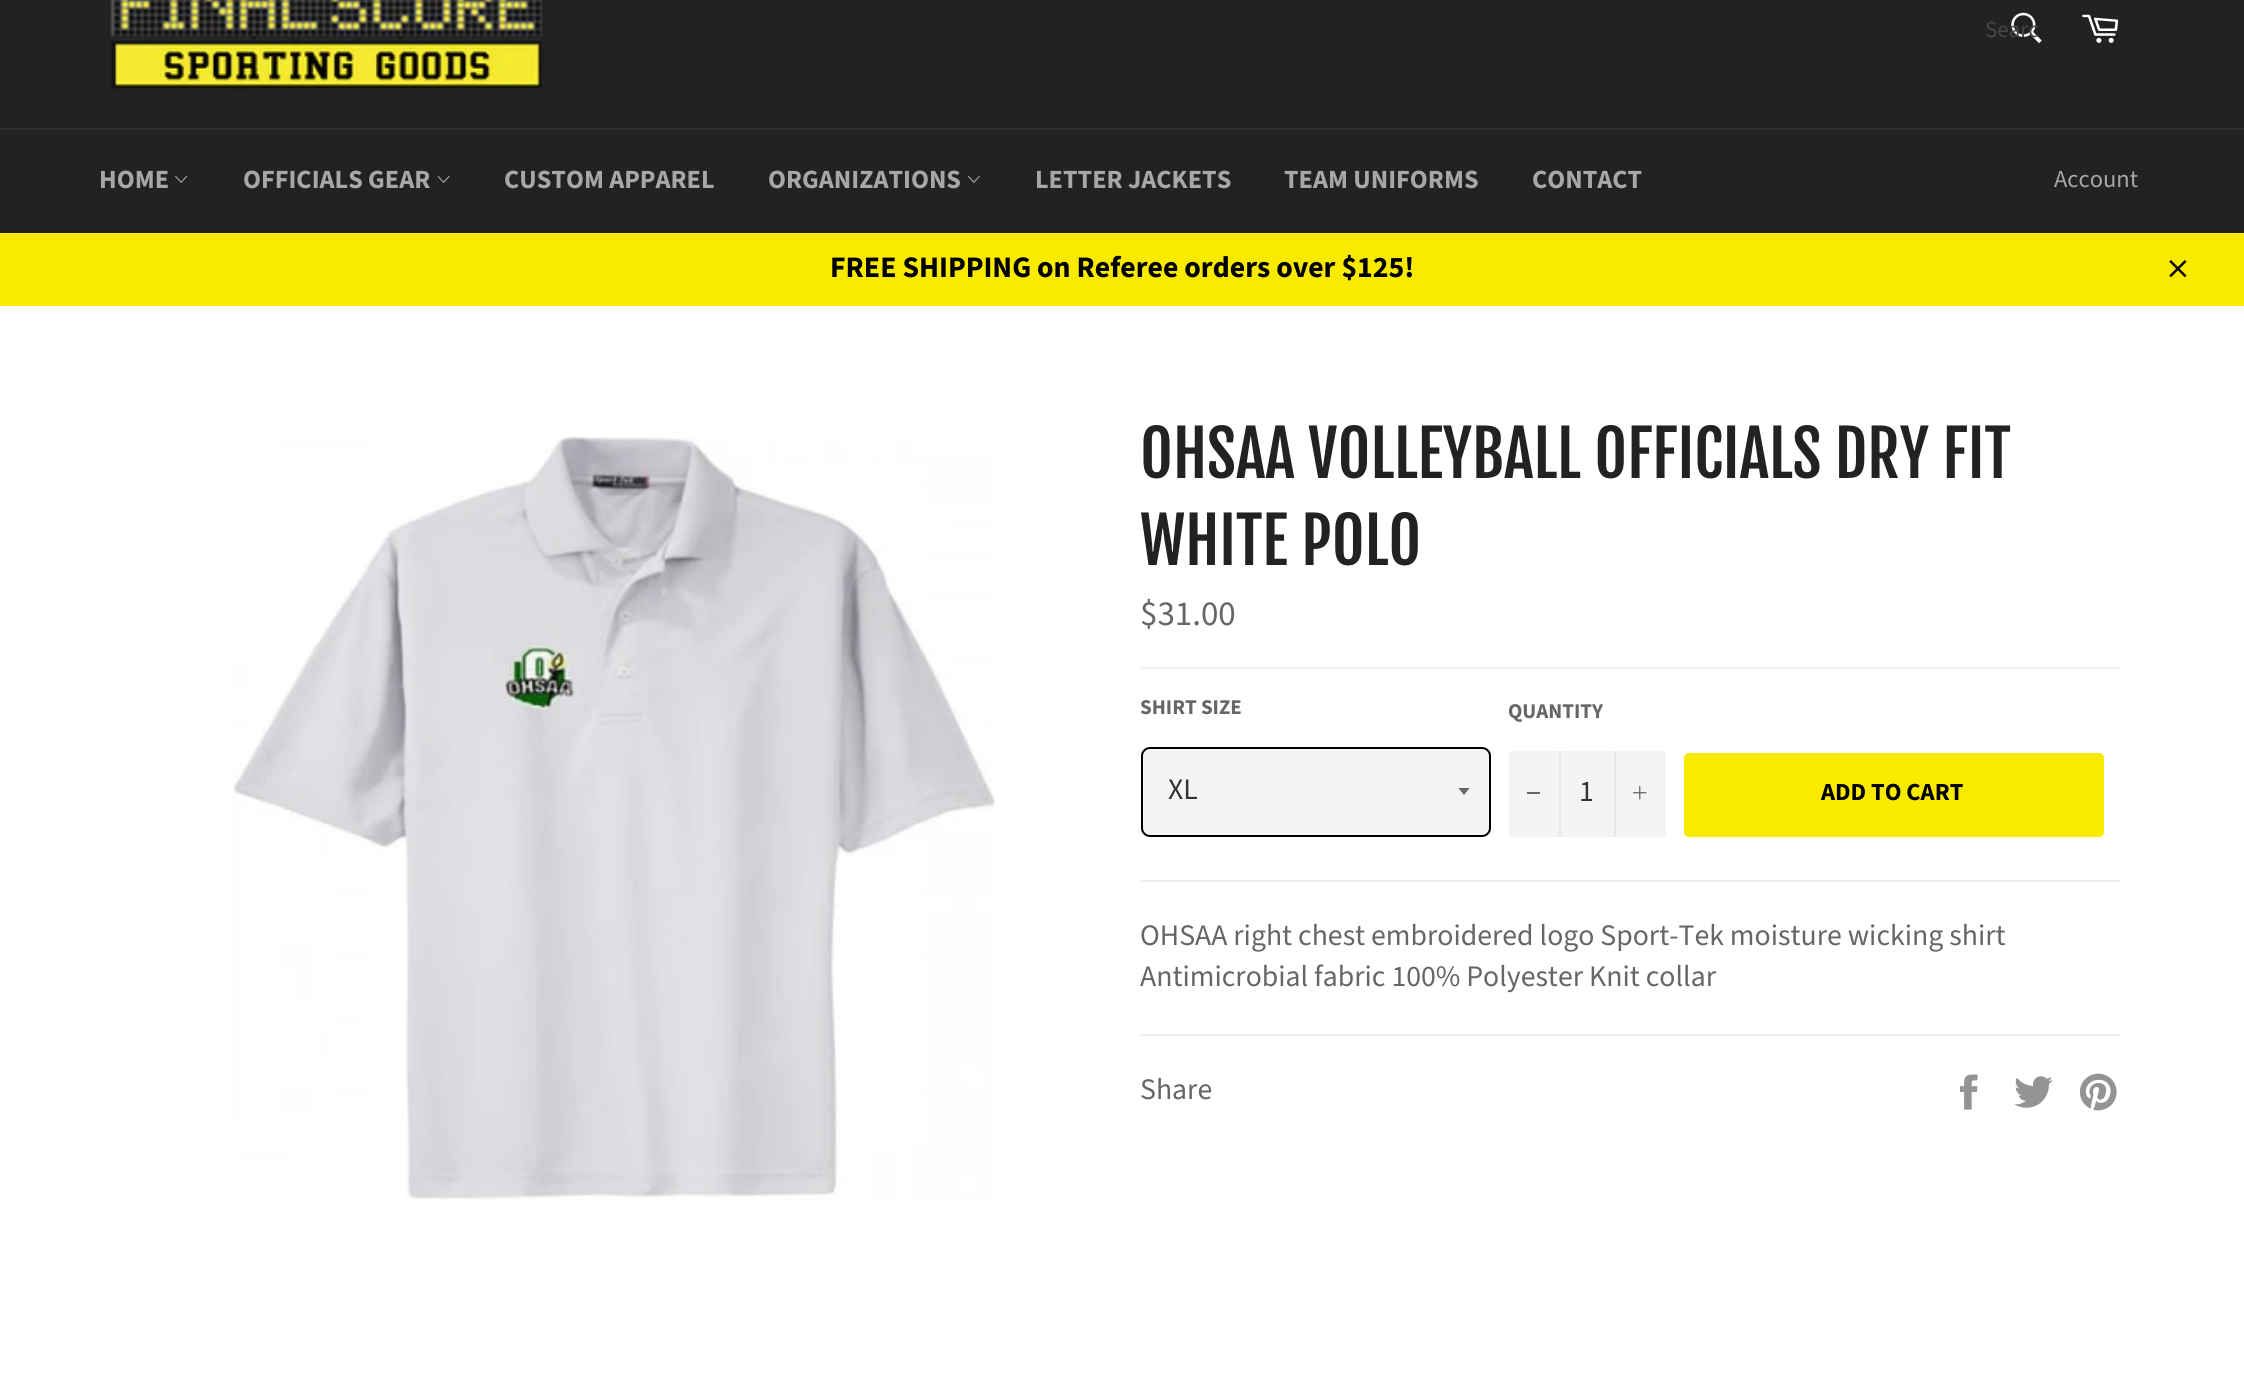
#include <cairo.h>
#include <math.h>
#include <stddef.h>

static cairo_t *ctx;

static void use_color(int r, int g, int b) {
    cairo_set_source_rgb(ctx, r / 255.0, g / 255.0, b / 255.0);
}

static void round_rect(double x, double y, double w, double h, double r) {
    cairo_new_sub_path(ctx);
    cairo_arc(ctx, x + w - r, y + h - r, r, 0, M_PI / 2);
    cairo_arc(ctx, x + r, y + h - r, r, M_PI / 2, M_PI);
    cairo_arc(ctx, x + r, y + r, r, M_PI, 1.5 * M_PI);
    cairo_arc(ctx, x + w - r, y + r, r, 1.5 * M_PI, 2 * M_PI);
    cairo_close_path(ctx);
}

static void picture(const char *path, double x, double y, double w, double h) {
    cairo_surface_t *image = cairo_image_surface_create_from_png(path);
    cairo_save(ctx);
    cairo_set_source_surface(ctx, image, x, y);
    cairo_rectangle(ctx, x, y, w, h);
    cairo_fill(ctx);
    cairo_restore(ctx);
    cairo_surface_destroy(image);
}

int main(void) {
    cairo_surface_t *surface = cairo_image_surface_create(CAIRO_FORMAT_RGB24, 2244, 1386);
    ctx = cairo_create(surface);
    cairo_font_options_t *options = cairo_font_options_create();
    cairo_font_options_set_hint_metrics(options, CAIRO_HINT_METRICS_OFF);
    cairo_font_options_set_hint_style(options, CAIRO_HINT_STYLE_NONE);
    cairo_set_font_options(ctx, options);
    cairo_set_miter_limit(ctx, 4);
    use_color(34, 34, 34);
    cairo_paint(ctx);
    picture("img1.png", 110, 0, 433, 89);
    picture("img2.png", 2011, 12, 31, 32);
    cairo_select_font_face(ctx, "Source Sans Pro", CAIRO_FONT_SLANT_NORMAL, CAIRO_FONT_WEIGHT_NORMAL);
    cairo_set_font_size(ctx, 23);
    use_color(70, 70, 70);
    cairo_move_to(ctx, 1985, 37);
    cairo_show_text(ctx, "Searc");
    picture("img3.png", 2082, 14, 37, 29);
    use_color(47, 47, 47);
    cairo_rectangle(ctx, 0, 128, 2244, 2);
    cairo_fill(ctx);
    cairo_select_font_face(ctx, "Source Sans Pro", CAIRO_FONT_SLANT_NORMAL, CAIRO_FONT_WEIGHT_BOLD);
    cairo_set_font_size(ctx, 26.25);
    use_color(167, 167, 167);
    cairo_move_to(ctx, 99, 188);
    cairo_show_text(ctx, "HOME");
    picture("img4.png", 175, 175, 13, 8);
    cairo_move_to(ctx, 243, 188);
    cairo_show_text(ctx, "OFFICIALS GEAR");
    picture("img5.png", 437, 175, 13, 8);
    cairo_move_to(ctx, 504, 188);
    cairo_show_text(ctx, "CUSTOM APPAREL");
    cairo_move_to(ctx, 768, 188);
    cairo_show_text(ctx, "ORGANIZATIONS");
    picture("img6.png", 967, 175, 13, 8);
    cairo_move_to(ctx, 1035, 188);
    cairo_show_text(ctx, "LETTER JACKETS");
    cairo_move_to(ctx, 1284, 188);
    cairo_show_text(ctx, "TEAM UNIFORMS");
    cairo_move_to(ctx, 1532, 188);
    cairo_show_text(ctx, "CONTACT");
    cairo_select_font_face(ctx, "Source Sans Pro", CAIRO_FONT_SLANT_NORMAL, CAIRO_FONT_WEIGHT_NORMAL);
    cairo_set_font_size(ctx, 24.5);
    cairo_move_to(ctx, 2054, 187);
    cairo_show_text(ctx, "Account");
    use_color(250, 234, 0);
    cairo_rectangle(ctx, 0, 233, 2244, 73);
    cairo_fill(ctx);
    cairo_select_font_face(ctx, "Source Sans Pro", CAIRO_FONT_SLANT_NORMAL, CAIRO_FONT_WEIGHT_BOLD);
    cairo_set_font_size(ctx, 29.75);
    use_color(0, 0, 0);
    cairo_move_to(ctx, 830, 277);
    cairo_show_text(ctx, "FREE SHIPPING on Referee orders over $125!");
    picture("img7.png", 2169, 260, 18, 18);
    use_color(255, 255, 255);
    cairo_rectangle(ctx, 0, 306, 2244, 1080);
    cairo_fill(ctx);
    picture("img8.png", 232, 436, 763, 764);
    cairo_select_font_face(ctx, "Fjalla One", CAIRO_FONT_SLANT_NORMAL, CAIRO_FONT_WEIGHT_NORMAL);
    cairo_set_font_size(ctx, 63);
    use_color(34, 34, 34);
    cairo_move_to(ctx, 1140, 478);
    cairo_show_text(ctx, "OHSAA VOLLEYBALL OFFICIALS DRY FIT");
    cairo_move_to(ctx, 1140, 565);
    cairo_show_text(ctx, "WHITE POLO");
    cairo_select_font_face(ctx, "Source Sans Pro", CAIRO_FONT_SLANT_NORMAL, CAIRO_FONT_WEIGHT_NORMAL);
    cairo_set_font_size(ctx, 35);
    use_color(102, 102, 102);
    cairo_move_to(ctx, 1140, 625);
    cairo_show_text(ctx, "$31.00");
    use_color(240, 240, 240);
    cairo_rectangle(ctx, 1141, 667, 980, 2);
    cairo_fill(ctx);
    cairo_select_font_face(ctx, "Source Sans Pro", CAIRO_FONT_SLANT_NORMAL, CAIRO_FONT_WEIGHT_BOLD);
    cairo_set_font_size(ctx, 21);
    use_color(102, 102, 102);
    cairo_move_to(ctx, 1140, 714);
    cairo_show_text(ctx, "SHIRT SIZE");
    use_color(244, 244, 244);
    round_rect(1141, 747, 350, 90, 9);
    cairo_fill(ctx);
    cairo_save(ctx);
    cairo_rectangle(ctx, 1458, 788, 14, 8);
    cairo_clip(ctx);
    use_color(102, 102, 102);
    cairo_new_path(ctx);
    cairo_move_to(ctx, 1458, 787.5);
    cairo_line_to(ctx, 1464, 795);
    cairo_line_to(ctx, 1470, 787.5);
    cairo_close_path(ctx);
    cairo_fill(ctx);
    cairo_restore(ctx);
    round_rect(1142, 748, 348, 88, 8);
    use_color(0, 0, 0);
    cairo_stroke(ctx);
    cairo_select_font_face(ctx, "Source Sans Pro", CAIRO_FONT_SLANT_NORMAL, CAIRO_FONT_WEIGHT_NORMAL);
    cairo_set_font_size(ctx, 29.75);
    use_color(51, 51, 51);
    cairo_move_to(ctx, 1168, 799);
    cairo_show_text(ctx, "XL");
    cairo_select_font_face(ctx, "Source Sans Pro", CAIRO_FONT_SLANT_NORMAL, CAIRO_FONT_WEIGHT_BOLD);
    cairo_set_font_size(ctx, 21);
    use_color(102, 102, 102);
    cairo_move_to(ctx, 1508, 718);
    cairo_show_text(ctx, "QUANTITY");
    use_color(244, 244, 244);
    cairo_rectangle(ctx, 1509, 751, 157, 86);
    cairo_fill(ctx);
    use_color(231, 231, 231);
    cairo_rectangle(ctx, 1559, 751, 2, 86);
    cairo_fill(ctx);
    use_color(102, 102, 102);
    cairo_rectangle(ctx, 1527, 792, 13, 2);
    cairo_fill(ctx);
    cairo_select_font_face(ctx, "Source Sans Pro", CAIRO_FONT_SLANT_NORMAL, CAIRO_FONT_WEIGHT_NORMAL);
    cairo_set_font_size(ctx, 29.75);
    use_color(51, 51, 51);
    cairo_move_to(ctx, 1579, 801);
    cairo_show_text(ctx, "1");
    use_color(231, 231, 231);
    cairo_rectangle(ctx, 1614, 751, 2, 86);
    cairo_fill(ctx);
    picture("img9.png", 1633, 786, 14, 14);
    use_color(250, 234, 0);
    round_rect(1684, 753, 420, 84, 5);
    cairo_fill(ctx);
    cairo_select_font_face(ctx, "Source Sans Pro", CAIRO_FONT_SLANT_NORMAL, CAIRO_FONT_WEIGHT_BOLD);
    cairo_set_font_size(ctx, 24.5);
    use_color(0, 0, 0);
    cairo_move_to(ctx, 1821, 800);
    cairo_show_text(ctx, "ADD TO CART");
    use_color(240, 240, 240);
    cairo_rectangle(ctx, 1141, 880, 980, 2);
    cairo_fill(ctx);
    cairo_select_font_face(ctx, "Source Sans Pro", CAIRO_FONT_SLANT_NORMAL, CAIRO_FONT_WEIGHT_NORMAL);
    cairo_set_font_size(ctx, 29.75);
    use_color(102, 102, 102);
    cairo_move_to(ctx, 1140, 945);
    cairo_show_text(ctx, "OHSAA right chest embroidered logo Sport-Tek moisture wicking shirt");
    cairo_move_to(ctx, 1140, 986);
    cairo_show_text(ctx, "Antimicrobial fabric 100% Polyester Knit collar");
    use_color(240, 240, 240);
    cairo_rectangle(ctx, 1141, 1034, 980, 2);
    cairo_fill(ctx);
    use_color(102, 102, 102);
    cairo_move_to(ctx, 1140, 1099);
    cairo_show_text(ctx, "Share");
    picture("img10.png", 1960, 1074, 18, 36);
    picture("img11.png", 2014, 1076, 39, 32);
    picture("img12.png", 2079, 1073, 38, 38);
    cairo_surface_write_to_png(surface, "result.png");
    cairo_font_options_destroy(options);
    cairo_destroy(ctx);
    cairo_surface_destroy(surface);
    return 0;
}
